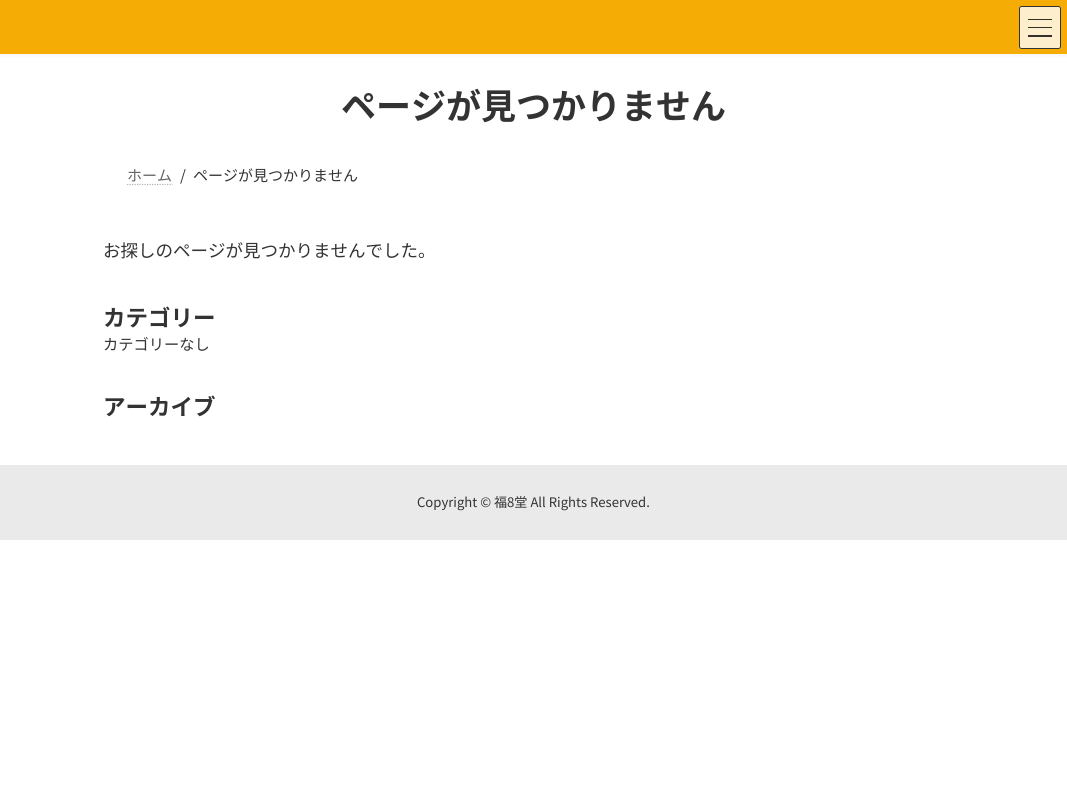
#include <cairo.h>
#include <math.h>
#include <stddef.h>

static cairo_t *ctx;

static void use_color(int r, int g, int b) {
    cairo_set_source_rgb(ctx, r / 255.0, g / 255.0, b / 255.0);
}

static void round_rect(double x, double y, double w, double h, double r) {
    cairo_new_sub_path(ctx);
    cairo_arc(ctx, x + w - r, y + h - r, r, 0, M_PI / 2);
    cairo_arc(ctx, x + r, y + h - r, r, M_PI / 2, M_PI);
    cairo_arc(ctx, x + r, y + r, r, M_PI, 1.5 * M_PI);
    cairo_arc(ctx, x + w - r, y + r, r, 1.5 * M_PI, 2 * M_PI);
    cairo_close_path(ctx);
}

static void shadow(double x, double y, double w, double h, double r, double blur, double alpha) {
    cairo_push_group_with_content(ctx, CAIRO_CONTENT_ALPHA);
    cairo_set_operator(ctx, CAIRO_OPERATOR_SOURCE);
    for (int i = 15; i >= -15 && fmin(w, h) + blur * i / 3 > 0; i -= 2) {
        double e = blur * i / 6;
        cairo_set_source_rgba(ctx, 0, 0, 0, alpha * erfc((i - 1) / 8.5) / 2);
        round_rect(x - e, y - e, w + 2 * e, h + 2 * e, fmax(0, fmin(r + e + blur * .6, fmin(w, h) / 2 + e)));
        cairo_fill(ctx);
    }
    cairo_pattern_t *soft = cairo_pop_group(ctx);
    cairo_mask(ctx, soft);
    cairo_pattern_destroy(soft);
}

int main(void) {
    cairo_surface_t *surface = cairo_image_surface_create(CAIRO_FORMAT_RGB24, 1067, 807);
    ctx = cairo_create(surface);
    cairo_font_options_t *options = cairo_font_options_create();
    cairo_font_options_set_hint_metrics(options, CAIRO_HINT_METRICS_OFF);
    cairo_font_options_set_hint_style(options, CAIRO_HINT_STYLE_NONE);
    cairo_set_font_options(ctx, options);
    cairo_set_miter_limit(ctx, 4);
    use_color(255, 255, 255);
    cairo_paint(ctx);
    use_color(0, 0, 0);
    shadow(0, 1, 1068, 54, 0, 2, 0.05);
    use_color(245, 173, 5);
    cairo_rectangle(ctx, 0, 0, 1067, 54);
    cairo_fill(ctx);
    use_color(253, 239, 205);
    round_rect(1019, 6, 42, 43, 2.5);
    cairo_fill(ctx);
    use_color(51, 48, 41);
    cairo_rectangle(ctx, 1028, 19, 24, 1);
    cairo_fill(ctx);
    cairo_rectangle(ctx, 1028, 27, 24, 1);
    cairo_fill(ctx);
    cairo_rectangle(ctx, 1028, 35, 24, 2);
    cairo_fill(ctx);
    round_rect(1019.5, 6.5, 41, 42, 2);
    use_color(51, 51, 51);
    cairo_set_line_width(ctx, 1);
    cairo_stroke(ctx);
    cairo_select_font_face(ctx, "Noto Sans JP", CAIRO_FONT_SLANT_NORMAL, CAIRO_FONT_WEIGHT_BOLD);
    cairo_set_font_size(ctx, 35);
    cairo_move_to(ctx, 341, 119);
    cairo_show_text(ctx, "ページが見つかりません");
    cairo_select_font_face(ctx, "Noto Sans JP", CAIRO_FONT_SLANT_NORMAL, CAIRO_FONT_WEIGHT_NORMAL);
    cairo_set_font_size(ctx, 15);
    use_color(102, 102, 102);
    cairo_move_to(ctx, 127, 181);
    cairo_show_text(ctx, "ホーム");
    cairo_new_path(ctx);
    cairo_move_to(ctx, 127, 184.5);
    cairo_line_to(ctx, 172.5, 184.5);
    use_color(179, 179, 179);
    cairo_set_line_width(ctx, 1.2);
    cairo_set_dash(ctx, (double[]){1.25, 1.25}, 2, 0);
    cairo_stroke(ctx);
    use_color(51, 51, 51);
    cairo_move_to(ctx, 180, 181);
    cairo_show_text(ctx, "/");
    cairo_move_to(ctx, 193, 181);
    cairo_show_text(ctx, "ページが見つかりません");
    cairo_set_font_size(ctx, 17.5);
    cairo_move_to(ctx, 103, 257);
    cairo_show_text(ctx, "お探しのページが見つかりませんでした。");
    cairo_select_font_face(ctx, "Noto Sans JP", CAIRO_FONT_SLANT_NORMAL, CAIRO_FONT_WEIGHT_BOLD);
    cairo_set_font_size(ctx, 22.5);
    cairo_move_to(ctx, 103, 326);
    cairo_show_text(ctx, "カテゴリー");
    cairo_select_font_face(ctx, "Noto Sans JP", CAIRO_FONT_SLANT_NORMAL, CAIRO_FONT_WEIGHT_NORMAL);
    cairo_set_font_size(ctx, 15.25);
    cairo_move_to(ctx, 103, 350);
    cairo_show_text(ctx, "カテゴリーなし");
    cairo_select_font_face(ctx, "Noto Sans JP", CAIRO_FONT_SLANT_NORMAL, CAIRO_FONT_WEIGHT_BOLD);
    cairo_set_font_size(ctx, 22.5);
    cairo_move_to(ctx, 103, 415);
    cairo_show_text(ctx, "アーカイブ");
    use_color(234, 234, 234);
    cairo_rectangle(ctx, 0, 465, 1067, 75);
    cairo_fill(ctx);
    cairo_select_font_face(ctx, "Noto Sans JP", CAIRO_FONT_SLANT_NORMAL, CAIRO_FONT_WEIGHT_NORMAL);
    cairo_set_font_size(ctx, 13.1);
    use_color(51, 51, 51);
    cairo_move_to(ctx, 417, 507);
    cairo_show_text(ctx, "Copyright © 福8堂 All Rights Reserved.");
    cairo_surface_write_to_png(surface, "result.png");
    cairo_font_options_destroy(options);
    cairo_destroy(ctx);
    cairo_surface_destroy(surface);
    return 0;
}
